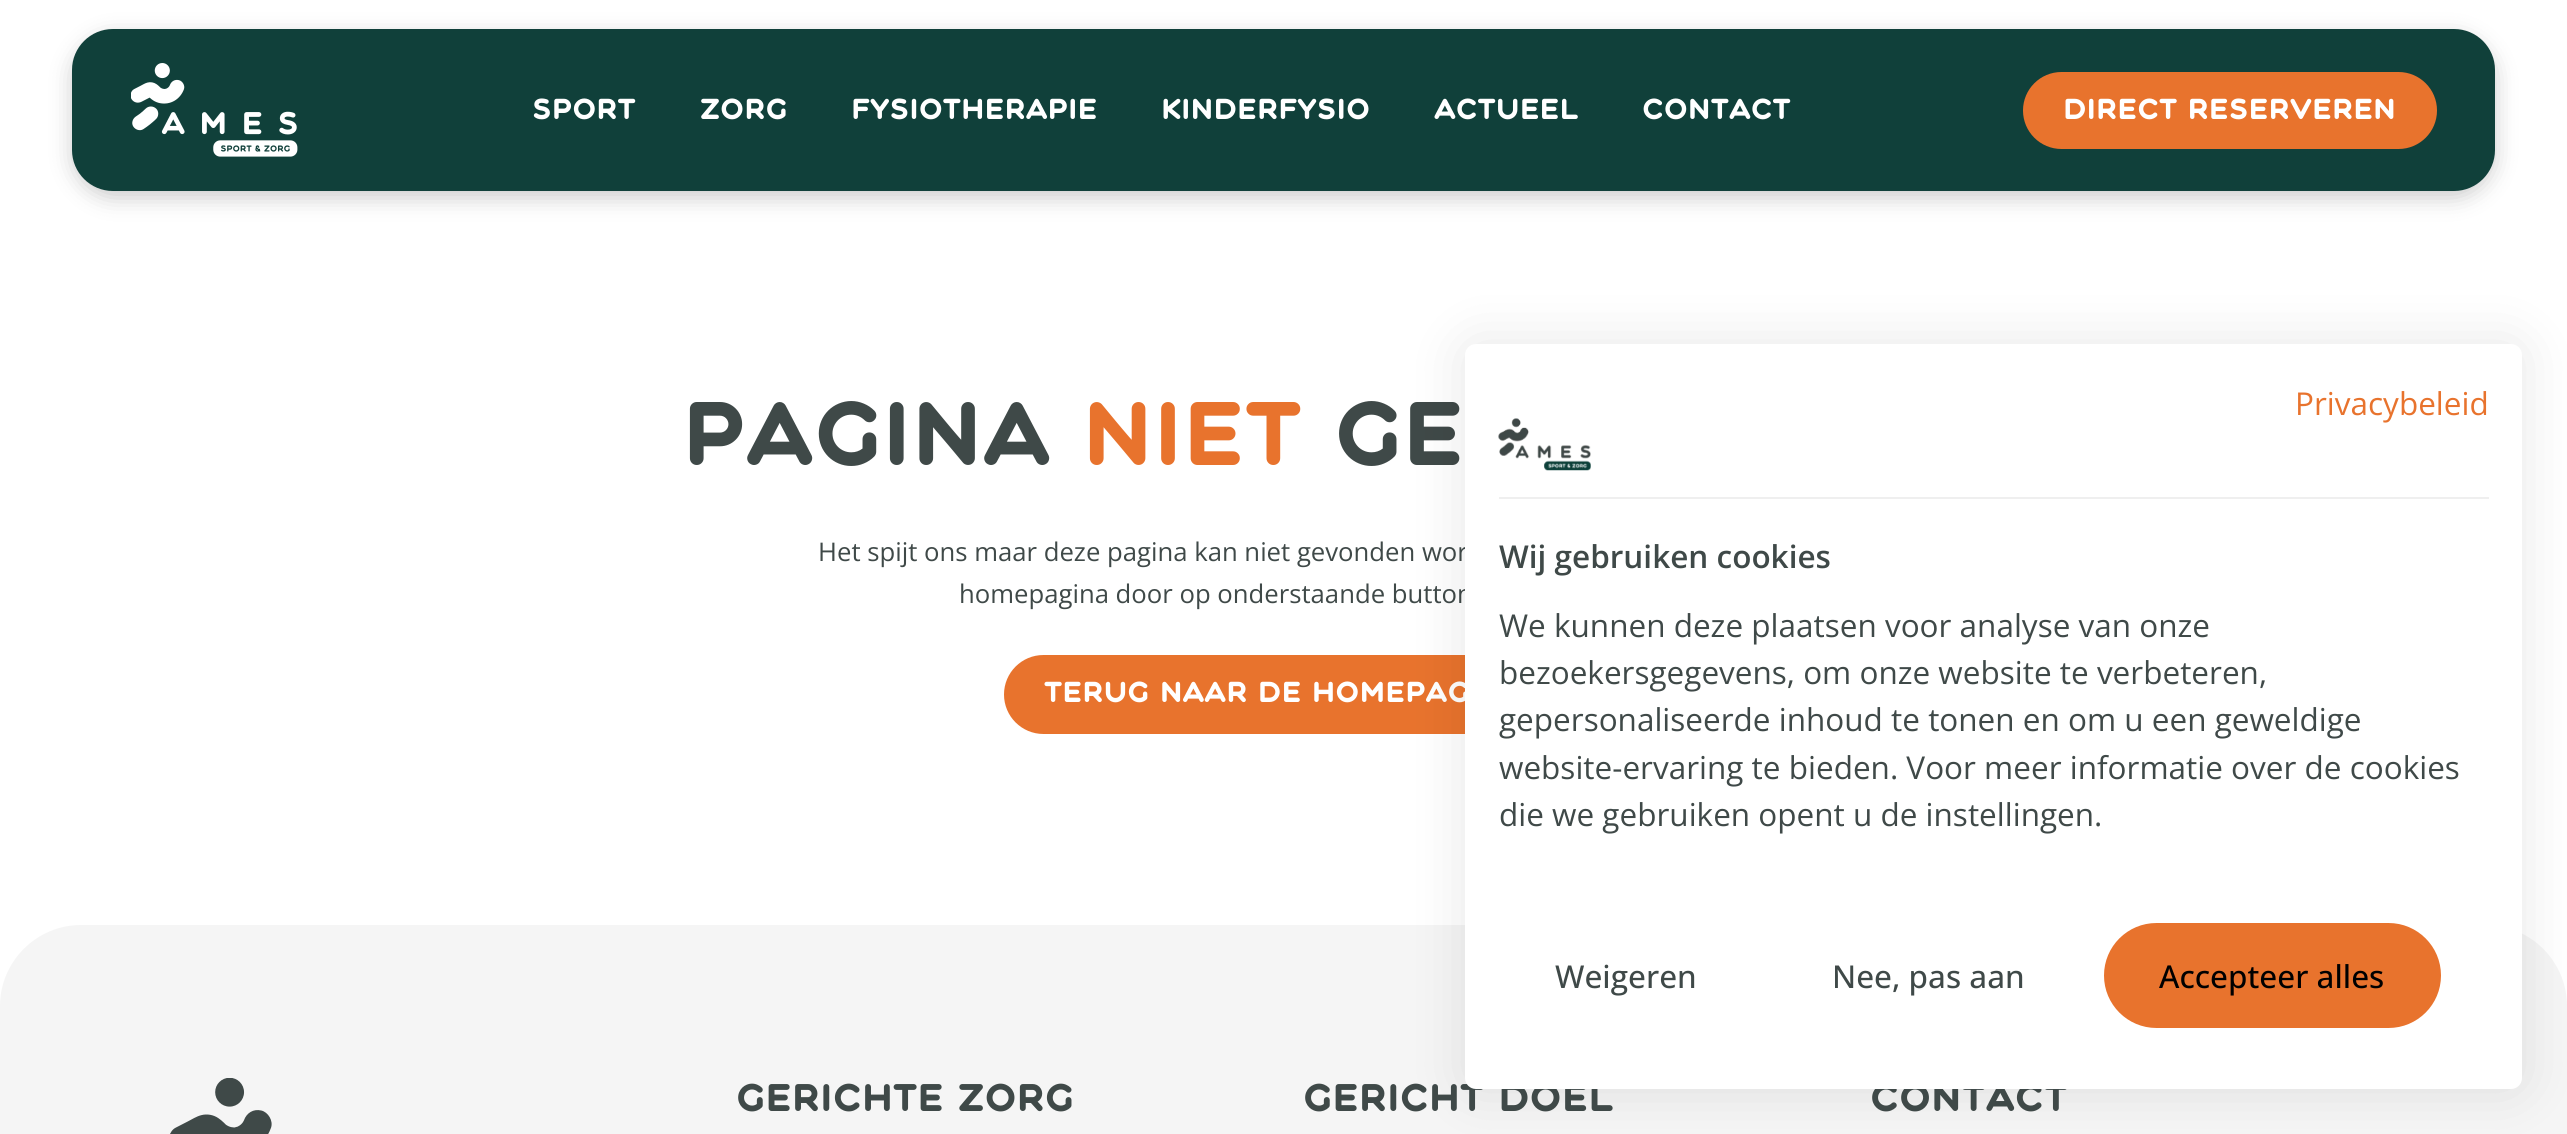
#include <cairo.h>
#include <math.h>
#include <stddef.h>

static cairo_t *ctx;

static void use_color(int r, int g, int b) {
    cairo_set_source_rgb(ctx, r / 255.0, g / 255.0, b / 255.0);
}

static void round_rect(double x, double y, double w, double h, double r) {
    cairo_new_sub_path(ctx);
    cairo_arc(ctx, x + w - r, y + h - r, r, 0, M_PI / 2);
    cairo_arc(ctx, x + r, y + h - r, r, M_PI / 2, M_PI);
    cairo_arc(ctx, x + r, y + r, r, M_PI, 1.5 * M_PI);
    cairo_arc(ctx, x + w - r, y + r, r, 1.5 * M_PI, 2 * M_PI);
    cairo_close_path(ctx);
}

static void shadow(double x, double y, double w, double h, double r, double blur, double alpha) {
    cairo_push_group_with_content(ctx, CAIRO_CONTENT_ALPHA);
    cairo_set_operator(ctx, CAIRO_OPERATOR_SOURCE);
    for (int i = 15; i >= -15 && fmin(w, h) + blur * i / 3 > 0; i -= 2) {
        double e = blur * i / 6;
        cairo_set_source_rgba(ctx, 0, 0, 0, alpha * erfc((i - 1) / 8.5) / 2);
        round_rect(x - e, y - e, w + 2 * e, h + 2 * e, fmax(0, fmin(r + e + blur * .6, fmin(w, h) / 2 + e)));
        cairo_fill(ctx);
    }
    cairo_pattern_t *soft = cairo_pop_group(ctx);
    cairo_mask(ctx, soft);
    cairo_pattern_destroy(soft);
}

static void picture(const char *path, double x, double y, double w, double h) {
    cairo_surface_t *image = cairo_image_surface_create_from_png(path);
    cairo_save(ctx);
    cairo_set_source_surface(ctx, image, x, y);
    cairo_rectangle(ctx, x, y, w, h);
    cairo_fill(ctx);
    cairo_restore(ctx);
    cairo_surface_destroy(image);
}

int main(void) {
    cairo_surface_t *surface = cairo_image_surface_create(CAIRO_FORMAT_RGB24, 2567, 1134);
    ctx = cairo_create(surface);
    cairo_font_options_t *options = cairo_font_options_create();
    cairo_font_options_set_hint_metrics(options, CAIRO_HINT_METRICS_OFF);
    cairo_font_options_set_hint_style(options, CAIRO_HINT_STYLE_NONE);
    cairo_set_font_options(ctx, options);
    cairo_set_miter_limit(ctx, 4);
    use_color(255, 255, 255);
    cairo_paint(ctx);
    use_color(0, 0, 0);
    shadow(72, 36, 2423, 162, 41, 11, 0.2);
    use_color(16, 64, 58);
    round_rect(72, 29, 2423, 162, 41);
    cairo_fill(ctx);
    picture("img1.png", 131, 63, 167, 94);
    cairo_select_font_face(ctx, "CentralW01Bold", CAIRO_FONT_SLANT_NORMAL, CAIRO_FONT_WEIGHT_BOLD);
    cairo_set_font_size(ctx, 28.9);
    use_color(255, 255, 255);
    cairo_move_to(ctx, 532, 119);
    cairo_show_text(ctx, "Sport");
    cairo_move_to(ctx, 700, 119);
    cairo_show_text(ctx, "Zorg");
    cairo_move_to(ctx, 851, 119);
    cairo_show_text(ctx, "Fysiotherapie");
    cairo_move_to(ctx, 1161, 119);
    cairo_show_text(ctx, "Kinderfysio");
    cairo_move_to(ctx, 1434, 119);
    cairo_show_text(ctx, "Actueel");
    cairo_move_to(ctx, 1642, 119);
    cairo_show_text(ctx, "Contact");
    use_color(232, 115, 45);
    round_rect(2023, 72, 414, 77, 38.5);
    cairo_fill(ctx);
    use_color(255, 255, 255);
    cairo_move_to(ctx, 2063, 119);
    cairo_show_text(ctx, "direct reserveren");
    cairo_set_font_size(ctx, 90);
    use_color(63, 73, 72);
    cairo_move_to(ctx, 682, 465);
    cairo_show_text(ctx, "Pagina");
    use_color(232, 115, 45);
    cairo_move_to(ctx, 1082, 465);
    cairo_show_text(ctx, "niet");
    use_color(63, 73, 72);
    cairo_move_to(ctx, 1334, 465);
    cairo_show_text(ctx, "ge");
    cairo_select_font_face(ctx, "Open Sans", CAIRO_FONT_SLANT_NORMAL, CAIRO_FONT_WEIGHT_NORMAL);
    cairo_set_font_size(ctx, 25.7);
    cairo_move_to(ctx, 818, 561);
    cairo_show_text(ctx, "Het spijt ons maar deze pagina kan niet gevonden wor");
    cairo_move_to(ctx, 959, 603);
    cairo_show_text(ctx, "homepagina door op onderstaande button");
    use_color(232, 115, 45);
    round_rect(1004, 655, 560, 79, 39.5);
    cairo_fill(ctx);
    cairo_select_font_face(ctx, "CentralW01Bold", CAIRO_FONT_SLANT_NORMAL, CAIRO_FONT_WEIGHT_BOLD);
    cairo_set_font_size(ctx, 28.9);
    use_color(255, 255, 255);
    cairo_move_to(ctx, 1044, 702);
    cairo_show_text(ctx, "Terug naar de homepag");
    use_color(245, 245, 245);
    cairo_new_path(ctx);
    cairo_move_to(ctx, 81, 925);
    cairo_line_to(ctx, 2486, 925);
    cairo_curve_to(ctx, 2530.5, 925, 2567, 961.5, 2567, 1006);
    cairo_line_to(ctx, 2567, 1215);
    cairo_line_to(ctx, 0, 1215);
    cairo_line_to(ctx, 0, 1006);
    cairo_curve_to(ctx, 0, 961.5, 36.5, 925, 81, 925);
    cairo_close_path(ctx);
    cairo_fill(ctx);
    use_color(0, 0, 0);
    shadow(1465, 344, 1057, 745, 11, 27, 0.1);
    cairo_set_font_size(ctx, 38.5);
    use_color(63, 73, 72);
    cairo_move_to(ctx, 1303, 1111);
    cairo_show_text(ctx, "Gericht doel");
    cairo_move_to(ctx, 1870, 1111);
    cairo_show_text(ctx, "Contact");
    use_color(255, 255, 255);
    round_rect(1465, 344, 1057, 745, 11);
    cairo_fill(ctx);
    cairo_select_font_face(ctx, "Open Sans", CAIRO_FONT_SLANT_NORMAL, CAIRO_FONT_WEIGHT_NORMAL);
    cairo_set_font_size(ctx, 31.5);
    use_color(232, 115, 45);
    cairo_move_to(ctx, 2295, 415);
    cairo_show_text(ctx, "Privacybeleid");
    picture("img2.png", 1498, 418, 93, 53);
    use_color(239, 239, 239);
    cairo_rectangle(ctx, 1499, 497, 990, 2);
    cairo_fill(ctx);
    cairo_select_font_face(ctx, "Open Sans SemiBold", CAIRO_FONT_SLANT_NORMAL, CAIRO_FONT_WEIGHT_NORMAL);
    use_color(63, 73, 72);
    cairo_move_to(ctx, 1499, 568);
    cairo_show_text(ctx, "Wij gebruiken cookies");
    cairo_select_font_face(ctx, "Open Sans", CAIRO_FONT_SLANT_NORMAL, CAIRO_FONT_WEIGHT_NORMAL);
    cairo_move_to(ctx, 1499, 637);
    cairo_show_text(ctx, "We kunnen deze plaatsen voor analyse van onze");
    cairo_move_to(ctx, 1499, 684);
    cairo_show_text(ctx, "bezoekersgegevens, om onze website te verbeteren,");
    cairo_move_to(ctx, 1499, 731);
    cairo_show_text(ctx, "gepersonaliseerde inhoud te tonen en om u een geweldige");
    cairo_move_to(ctx, 1499, 779);
    cairo_show_text(ctx, "website-ervaring te bieden. Voor meer informatie over de cookies");
    cairo_move_to(ctx, 1499, 826);
    cairo_show_text(ctx, "die we gebruiken opent u de instellingen.");
    cairo_select_font_face(ctx, "Open Sans Medium", CAIRO_FONT_SLANT_NORMAL, CAIRO_FONT_WEIGHT_NORMAL);
    cairo_move_to(ctx, 1555, 988);
    cairo_show_text(ctx, "Weigeren");
    cairo_move_to(ctx, 1832, 988);
    cairo_show_text(ctx, "Nee, pas aan");
    use_color(232, 115, 45);
    round_rect(2105, 924, 335, 103, 51.5);
    cairo_fill_preserve(ctx);
    cairo_stroke(ctx);
    use_color(0, 0, 0);
    cairo_move_to(ctx, 2159, 988);
    cairo_show_text(ctx, "Accepteer alles");
    picture("img3.png", 170, 1078, 102, 56);
    cairo_select_font_face(ctx, "CentralW01Bold", CAIRO_FONT_SLANT_NORMAL, CAIRO_FONT_WEIGHT_BOLD);
    cairo_set_font_size(ctx, 38.5);
    use_color(63, 73, 72);
    cairo_move_to(ctx, 736, 1111);
    cairo_show_text(ctx, "Gerichte zorg");
    cairo_surface_write_to_png(surface, "result.png");
    cairo_font_options_destroy(options);
    cairo_destroy(ctx);
    cairo_surface_destroy(surface);
    return 0;
}
